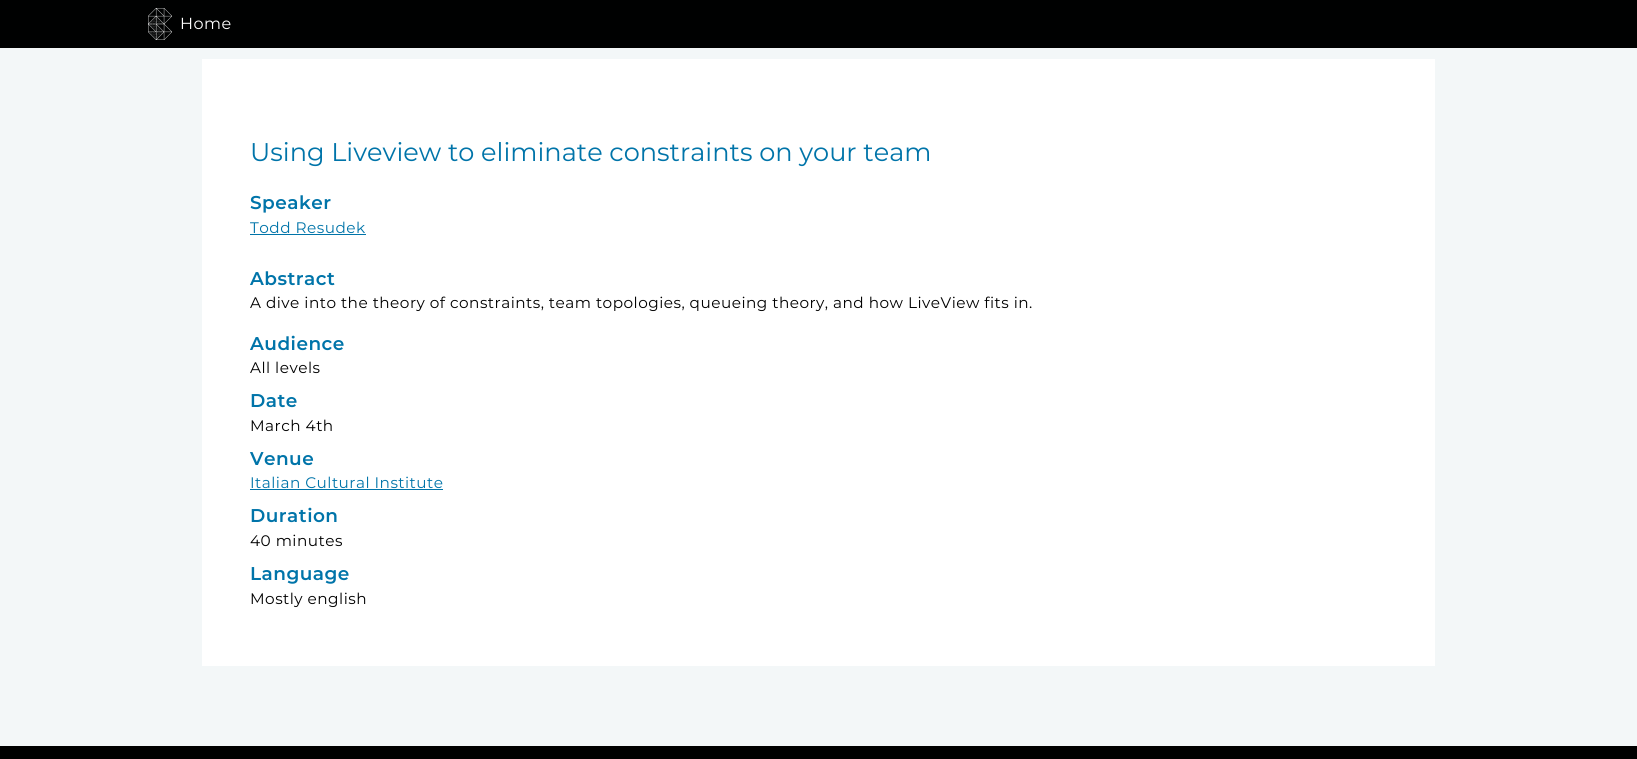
#include <cairo.h>
#include <math.h>
#include <stddef.h>

static cairo_t *ctx;

static void use_color(int r, int g, int b) {
    cairo_set_source_rgb(ctx, r / 255.0, g / 255.0, b / 255.0);
}

static void spaced_text(double x, double y, const char *s, double letter, double word) {
    cairo_move_to(ctx, x, y);
    while (*s) {
        char ch[5] = {0};
        int n = 0;
        do ch[n++] = *s++; while ((*s & 0xC0) == 0x80);
        cairo_show_text(ctx, ch);
        cairo_rel_move_to(ctx, letter + word * (*ch == ' '), 0);
    }
}

static void picture(const char *path, double x, double y, double w, double h) {
    cairo_surface_t *image = cairo_image_surface_create_from_png(path);
    cairo_save(ctx);
    cairo_set_source_surface(ctx, image, x, y);
    cairo_rectangle(ctx, x, y, w, h);
    cairo_fill(ctx);
    cairo_restore(ctx);
    cairo_surface_destroy(image);
}

int main(void) {
    cairo_surface_t *surface = cairo_image_surface_create(CAIRO_FORMAT_RGB24, 1637, 759);
    ctx = cairo_create(surface);
    cairo_font_options_t *options = cairo_font_options_create();
    cairo_font_options_set_hint_metrics(options, CAIRO_HINT_METRICS_OFF);
    cairo_font_options_set_hint_style(options, CAIRO_HINT_STYLE_NONE);
    cairo_set_font_options(ctx, options);
    cairo_set_miter_limit(ctx, 4);
    use_color(243, 247, 248);
    cairo_paint(ctx);
    use_color(0, 1, 1);
    cairo_rectangle(ctx, 0, 0, 1637, 48);
    cairo_fill(ctx);
    picture("img1.png", 148, 8, 24, 32);
    cairo_select_font_face(ctx, "Montserrat", CAIRO_FONT_SLANT_NORMAL, CAIRO_FONT_WEIGHT_NORMAL);
    cairo_set_font_size(ctx, 16);
    use_color(255, 255, 255);
    spaced_text(180, 29, "Home", 0.48, 0);
    cairo_rectangle(ctx, 202, 59, 1233, 607);
    cairo_fill(ctx);
    cairo_set_font_size(ctx, 25.6);
    use_color(0, 116, 169);
    cairo_move_to(ctx, 250, 161);
    cairo_show_text(ctx, "Using Liveview to eliminate constraints on your team");
    cairo_select_font_face(ctx, "Montserrat SemiBold", CAIRO_FONT_SLANT_NORMAL, CAIRO_FONT_WEIGHT_NORMAL);
    cairo_set_font_size(ctx, 18.5);
    spaced_text(250, 209, "Speaker", 0.48, 0);
    cairo_select_font_face(ctx, "Montserrat", CAIRO_FONT_SLANT_NORMAL, CAIRO_FONT_WEIGHT_NORMAL);
    cairo_set_font_size(ctx, 15.28);
    spaced_text(250, 233, "Todd Resudek", 0.48, 0);
    cairo_rectangle(ctx, 250, 234, 116, 1);
    cairo_fill(ctx);
    cairo_select_font_face(ctx, "Montserrat SemiBold", CAIRO_FONT_SLANT_NORMAL, CAIRO_FONT_WEIGHT_NORMAL);
    cairo_set_font_size(ctx, 18.5);
    spaced_text(250, 285, "Abstract", 0.48, 0);
    cairo_select_font_face(ctx, "Montserrat", CAIRO_FONT_SLANT_NORMAL, CAIRO_FONT_WEIGHT_NORMAL);
    cairo_set_font_size(ctx, 15.28);
    use_color(0, 0, 0);
    spaced_text(250, 308, "A dive into the theory of constraints, team topologies, queueing theory, and how LiveView fits in.", 0.48, 0);
    cairo_select_font_face(ctx, "Montserrat SemiBold", CAIRO_FONT_SLANT_NORMAL, CAIRO_FONT_WEIGHT_NORMAL);
    cairo_set_font_size(ctx, 18.5);
    use_color(0, 116, 169);
    spaced_text(250, 350, "Audience", 0.48, 0);
    cairo_select_font_face(ctx, "Montserrat", CAIRO_FONT_SLANT_NORMAL, CAIRO_FONT_WEIGHT_NORMAL);
    cairo_set_font_size(ctx, 15.28);
    use_color(0, 0, 0);
    spaced_text(250, 373, "All levels", 0.48, 0);
    cairo_select_font_face(ctx, "Montserrat SemiBold", CAIRO_FONT_SLANT_NORMAL, CAIRO_FONT_WEIGHT_NORMAL);
    cairo_set_font_size(ctx, 18.5);
    use_color(0, 116, 169);
    spaced_text(250, 407, "Date", 0.48, 0);
    cairo_select_font_face(ctx, "Montserrat", CAIRO_FONT_SLANT_NORMAL, CAIRO_FONT_WEIGHT_NORMAL);
    cairo_set_font_size(ctx, 15.28);
    use_color(0, 0, 0);
    spaced_text(250, 431, "March 4th", 0.48, 0);
    cairo_select_font_face(ctx, "Montserrat SemiBold", CAIRO_FONT_SLANT_NORMAL, CAIRO_FONT_WEIGHT_NORMAL);
    cairo_set_font_size(ctx, 18.5);
    use_color(0, 116, 169);
    spaced_text(250, 465, "Venue", 0.48, 0);
    cairo_select_font_face(ctx, "Montserrat", CAIRO_FONT_SLANT_NORMAL, CAIRO_FONT_WEIGHT_NORMAL);
    cairo_set_font_size(ctx, 15.28);
    spaced_text(250, 488, "Italian Cultural Institute", 0.48, 0);
    cairo_rectangle(ctx, 250, 489, 193, 1);
    cairo_fill(ctx);
    cairo_select_font_face(ctx, "Montserrat SemiBold", CAIRO_FONT_SLANT_NORMAL, CAIRO_FONT_WEIGHT_NORMAL);
    cairo_set_font_size(ctx, 18.5);
    spaced_text(250, 522, "Duration", 0.48, 0);
    cairo_select_font_face(ctx, "Montserrat", CAIRO_FONT_SLANT_NORMAL, CAIRO_FONT_WEIGHT_NORMAL);
    cairo_set_font_size(ctx, 15.28);
    use_color(0, 0, 0);
    spaced_text(250, 546, "40 minutes", 0.48, 0);
    cairo_select_font_face(ctx, "Montserrat SemiBold", CAIRO_FONT_SLANT_NORMAL, CAIRO_FONT_WEIGHT_NORMAL);
    cairo_set_font_size(ctx, 18.5);
    use_color(0, 116, 169);
    spaced_text(250, 580, "Language", 0.48, 0);
    cairo_select_font_face(ctx, "Montserrat", CAIRO_FONT_SLANT_NORMAL, CAIRO_FONT_WEIGHT_NORMAL);
    cairo_set_font_size(ctx, 15.28);
    use_color(0, 0, 0);
    spaced_text(250, 604, "Mostly english", 0.48, 0);
    cairo_rectangle(ctx, 0, 746, 1637, 13);
    cairo_fill(ctx);
    cairo_surface_write_to_png(surface, "result.png");
    cairo_font_options_destroy(options);
    cairo_destroy(ctx);
    cairo_surface_destroy(surface);
    return 0;
}
